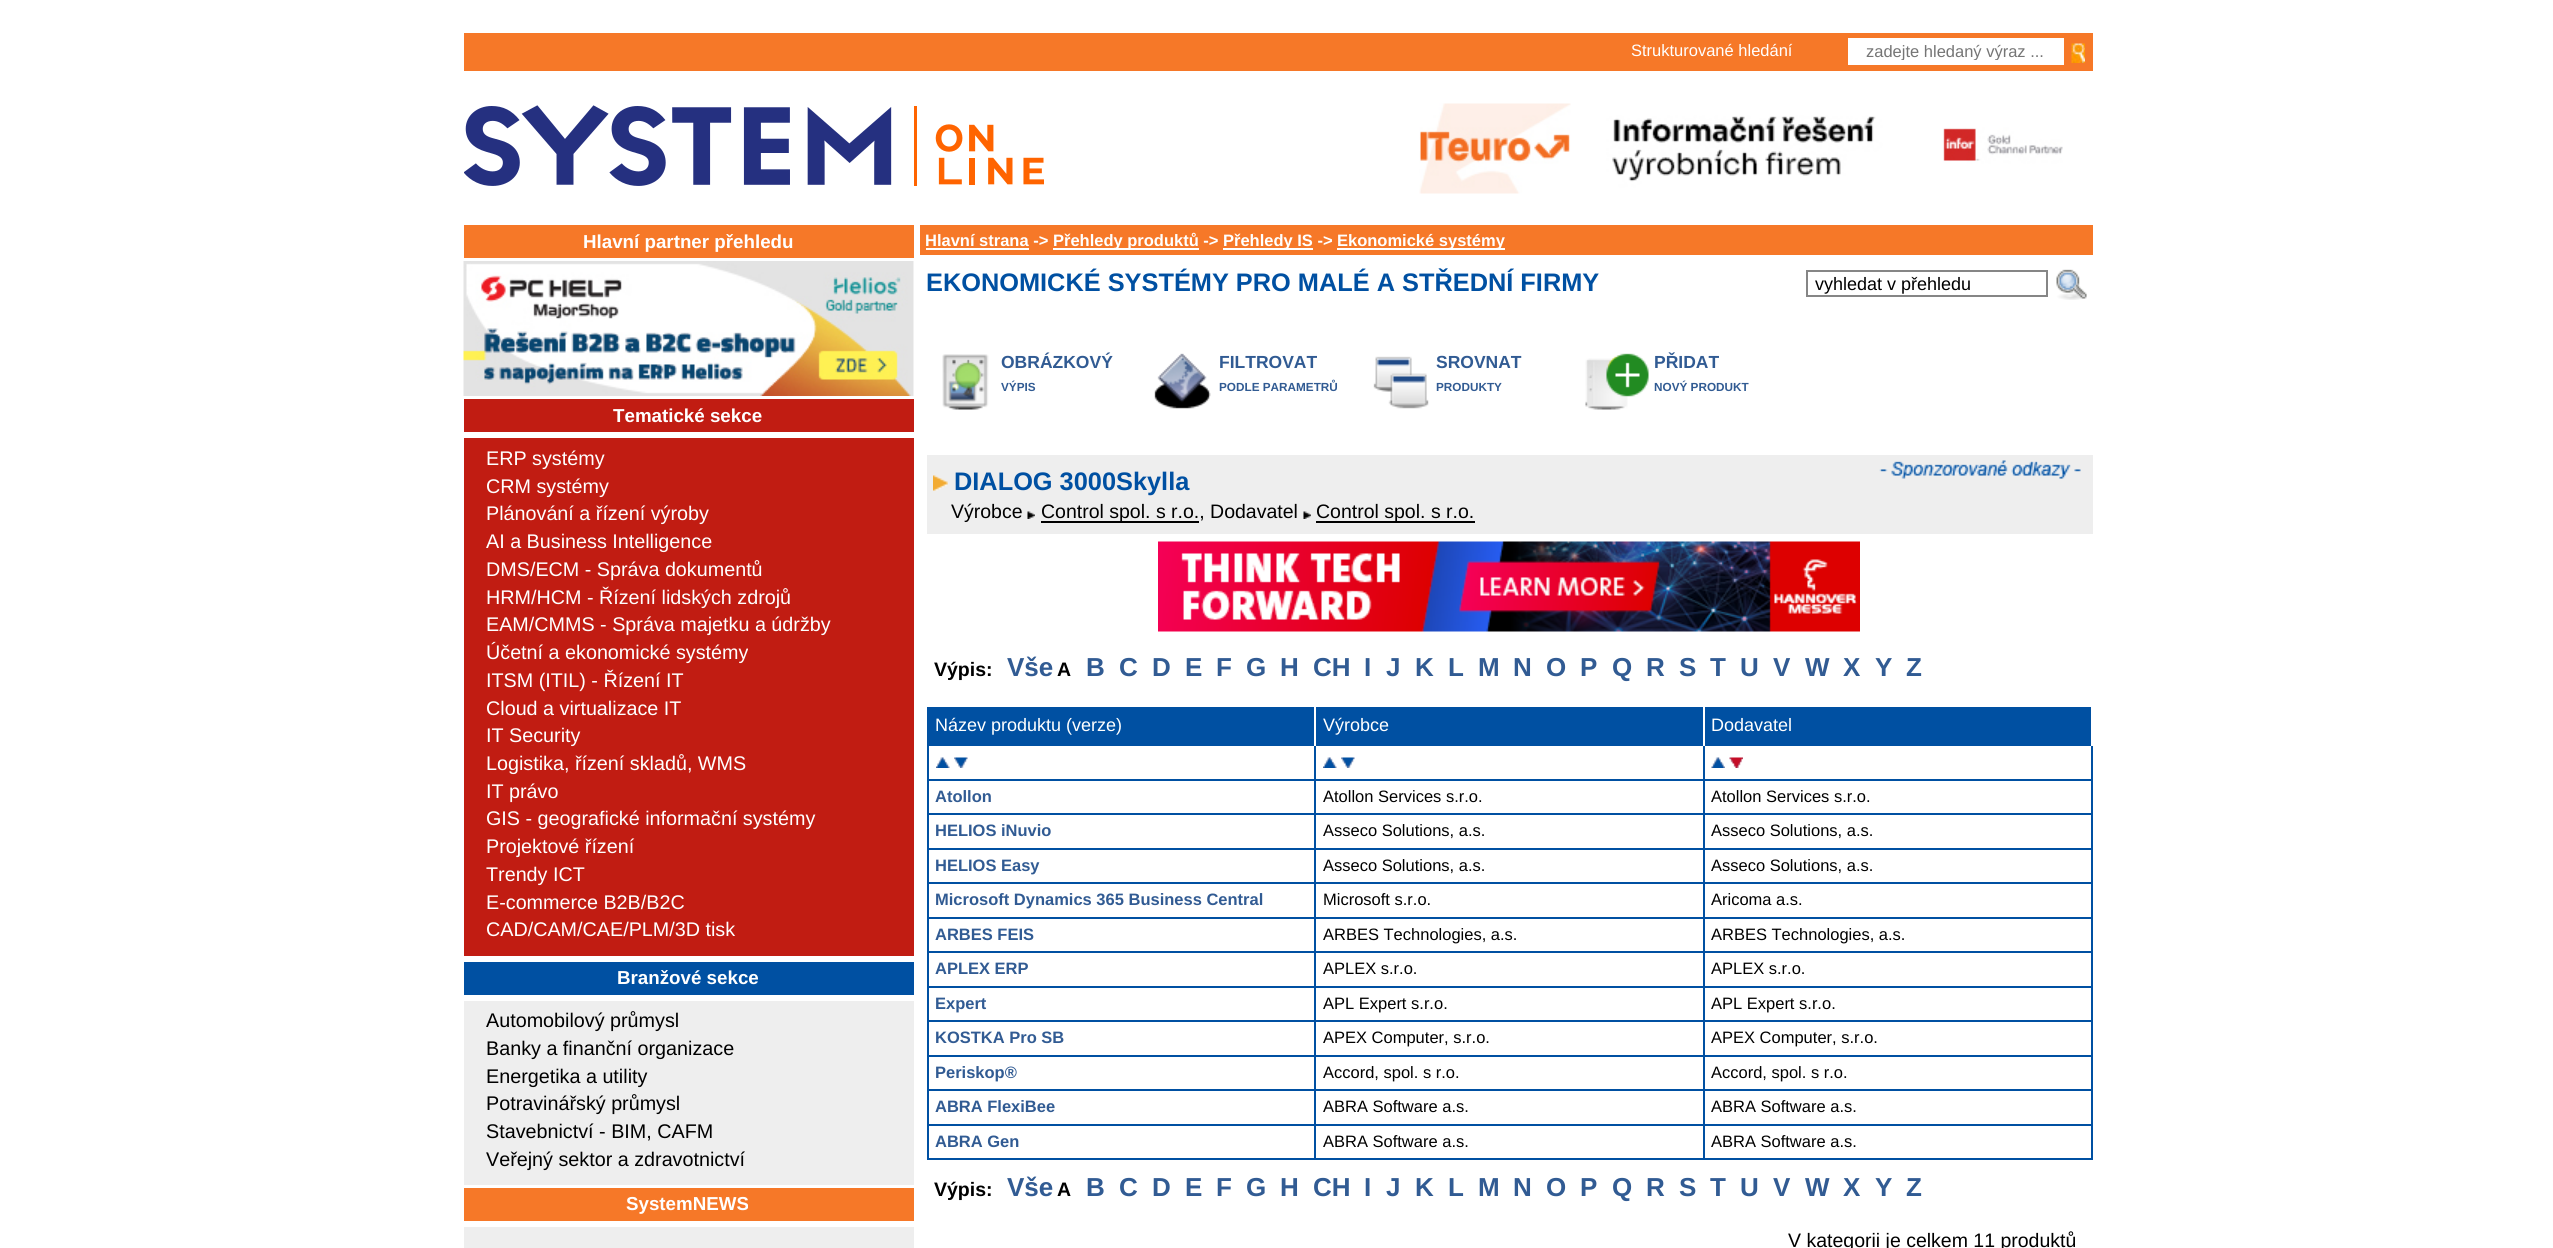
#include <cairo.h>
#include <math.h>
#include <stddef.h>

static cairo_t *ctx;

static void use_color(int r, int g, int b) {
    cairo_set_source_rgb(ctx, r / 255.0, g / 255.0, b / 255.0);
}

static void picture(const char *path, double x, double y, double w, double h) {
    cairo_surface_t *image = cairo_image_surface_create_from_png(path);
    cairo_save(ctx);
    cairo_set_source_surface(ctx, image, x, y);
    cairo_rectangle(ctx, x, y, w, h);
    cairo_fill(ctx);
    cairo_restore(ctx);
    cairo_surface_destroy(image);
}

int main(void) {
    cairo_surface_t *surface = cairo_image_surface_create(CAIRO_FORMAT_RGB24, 2553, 1248);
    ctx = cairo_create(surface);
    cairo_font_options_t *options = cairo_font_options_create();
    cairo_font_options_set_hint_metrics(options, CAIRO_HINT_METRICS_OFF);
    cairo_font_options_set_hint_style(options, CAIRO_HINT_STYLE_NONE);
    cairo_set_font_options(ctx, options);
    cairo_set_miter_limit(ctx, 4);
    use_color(255, 255, 255);
    cairo_paint(ctx);
    use_color(246, 120, 40);
    cairo_rectangle(ctx, 464, 33, 1629, 38);
    cairo_fill(ctx);
    cairo_select_font_face(ctx, "Liberation Sans", CAIRO_FONT_SLANT_NORMAL, CAIRO_FONT_WEIGHT_NORMAL);
    cairo_set_font_size(ctx, 16.5);
    use_color(255, 255, 255);
    cairo_move_to(ctx, 1631, 56);
    cairo_show_text(ctx, "Strukturované hledání");
    cairo_rectangle(ctx, 1848, 38, 216, 27);
    cairo_fill(ctx);
    cairo_save(ctx);
    cairo_rectangle(ctx, 1851, 42, 210, 18);
    cairo_clip(ctx);
    use_color(117, 117, 117);
    cairo_move_to(ctx, 1866, 57);
    cairo_show_text(ctx, "zadejte hledaný výraz ...");
    cairo_restore(ctx);
    picture("img1.png", 2071, 43, 14, 20);
    picture("img2.png", 464, 105, 580, 81);
    picture("img3.png", 1419, 103, 644, 91);
    use_color(246, 120, 40);
    cairo_rectangle(ctx, 464, 225, 450, 33);
    cairo_fill(ctx);
    cairo_select_font_face(ctx, "Liberation Sans", CAIRO_FONT_SLANT_NORMAL, CAIRO_FONT_WEIGHT_BOLD);
    cairo_set_font_size(ctx, 18.75);
    use_color(255, 255, 255);
    cairo_move_to(ctx, 583, 248);
    cairo_show_text(ctx, "Hlavní partner přehledu");
    picture("img4.png", 463, 261, 451, 135);
    use_color(193, 28, 18);
    cairo_rectangle(ctx, 464, 399, 450, 33);
    cairo_fill(ctx);
    use_color(255, 255, 255);
    cairo_move_to(ctx, 613, 422);
    cairo_show_text(ctx, "Tematické sekce");
    use_color(193, 28, 18);
    cairo_rectangle(ctx, 464, 438, 450, 518);
    cairo_fill(ctx);
    cairo_select_font_face(ctx, "Liberation Sans", CAIRO_FONT_SLANT_NORMAL, CAIRO_FONT_WEIGHT_NORMAL);
    cairo_set_font_size(ctx, 19.75);
    use_color(255, 255, 255);
    cairo_move_to(ctx, 486, 465);
    cairo_show_text(ctx, "ERP systémy");
    cairo_move_to(ctx, 486, 493);
    cairo_show_text(ctx, "CRM systémy");
    cairo_move_to(ctx, 486, 520);
    cairo_show_text(ctx, "Plánování a řízení výroby");
    cairo_move_to(ctx, 486, 548);
    cairo_show_text(ctx, "AI a Business Intelligence");
    cairo_move_to(ctx, 486, 576);
    cairo_show_text(ctx, "DMS/ECM - Správa dokumentů");
    cairo_move_to(ctx, 486, 604);
    cairo_show_text(ctx, "HRM/HCM - Řízení lidských zdrojů");
    cairo_move_to(ctx, 486, 631);
    cairo_show_text(ctx, "EAM/CMMS - Správa majetku a údržby");
    cairo_move_to(ctx, 486, 659);
    cairo_show_text(ctx, "Účetní a ekonomické systémy");
    cairo_move_to(ctx, 486, 687);
    cairo_show_text(ctx, "ITSM (ITIL) - Řízení IT");
    cairo_move_to(ctx, 486, 715);
    cairo_show_text(ctx, "Cloud a virtualizace IT");
    cairo_move_to(ctx, 486, 742);
    cairo_show_text(ctx, "IT Security");
    cairo_move_to(ctx, 486, 770);
    cairo_show_text(ctx, "Logistika, řízení skladů, WMS");
    cairo_move_to(ctx, 486, 798);
    cairo_show_text(ctx, "IT právo");
    cairo_move_to(ctx, 486, 825);
    cairo_show_text(ctx, "GIS - geografické informační systémy");
    cairo_move_to(ctx, 486, 853);
    cairo_show_text(ctx, "Projektové řízení");
    cairo_move_to(ctx, 486, 881);
    cairo_show_text(ctx, "Trendy ICT");
    cairo_move_to(ctx, 486, 909);
    cairo_show_text(ctx, "E-commerce B2B/B2C");
    cairo_move_to(ctx, 486, 936);
    cairo_show_text(ctx, "CAD/CAM/CAE/PLM/3D tisk");
    use_color(0, 80, 162);
    cairo_rectangle(ctx, 464, 962, 450, 33);
    cairo_fill(ctx);
    cairo_select_font_face(ctx, "Liberation Sans", CAIRO_FONT_SLANT_NORMAL, CAIRO_FONT_WEIGHT_BOLD);
    cairo_set_font_size(ctx, 18.75);
    use_color(255, 255, 255);
    cairo_move_to(ctx, 617, 984);
    cairo_show_text(ctx, "Branžové sekce");
    use_color(238, 238, 238);
    cairo_rectangle(ctx, 464, 1001, 450, 184);
    cairo_fill(ctx);
    cairo_select_font_face(ctx, "Liberation Sans", CAIRO_FONT_SLANT_NORMAL, CAIRO_FONT_WEIGHT_NORMAL);
    cairo_set_font_size(ctx, 19.75);
    use_color(0, 0, 0);
    cairo_move_to(ctx, 486, 1027);
    cairo_show_text(ctx, "Automobilový průmysl");
    cairo_move_to(ctx, 486, 1055);
    cairo_show_text(ctx, "Banky a finanční organizace");
    cairo_move_to(ctx, 486, 1083);
    cairo_show_text(ctx, "Energetika a utility");
    cairo_move_to(ctx, 486, 1110);
    cairo_show_text(ctx, "Potravinářský průmysl");
    cairo_move_to(ctx, 486, 1138);
    cairo_show_text(ctx, "Stavebnictví - BIM, CAFM");
    cairo_move_to(ctx, 486, 1166);
    cairo_show_text(ctx, "Veřejný sektor a zdravotnictví");
    use_color(246, 120, 40);
    cairo_rectangle(ctx, 464, 1188, 450, 33);
    cairo_fill(ctx);
    cairo_select_font_face(ctx, "Liberation Sans", CAIRO_FONT_SLANT_NORMAL, CAIRO_FONT_WEIGHT_BOLD);
    cairo_set_font_size(ctx, 18.75);
    use_color(255, 255, 255);
    cairo_move_to(ctx, 626, 1210);
    cairo_show_text(ctx, "SystemNEWS");
    use_color(238, 238, 238);
    cairo_rectangle(ctx, 464, 1227, 450, 21);
    cairo_fill(ctx);
    use_color(246, 120, 40);
    cairo_rectangle(ctx, 920, 225, 1173, 30);
    cairo_fill(ctx);
    cairo_set_font_size(ctx, 16.5);
    use_color(255, 255, 255);
    cairo_move_to(ctx, 925, 246);
    cairo_show_text(ctx, "Hlavní strana ->");
    cairo_rectangle(ctx, 926, 248, 103, 2);
    cairo_fill(ctx);
    cairo_rectangle(ctx, 1053, 248, 146, 2);
    cairo_fill(ctx);
    cairo_move_to(ctx, 1053, 246);
    cairo_show_text(ctx, "Přehledy produktů ->");
    cairo_rectangle(ctx, 1223, 248, 90, 2);
    cairo_fill(ctx);
    cairo_move_to(ctx, 1223, 246);
    cairo_show_text(ctx, "Přehledy IS ->");
    cairo_rectangle(ctx, 1337, 248, 168, 2);
    cairo_fill(ctx);
    cairo_move_to(ctx, 1337, 246);
    cairo_show_text(ctx, "Ekonomické systémy");
    cairo_set_font_size(ctx, 25.35);
    use_color(0, 80, 162);
    cairo_move_to(ctx, 926, 291);
    cairo_show_text(ctx, "EKONOMICKÉ SYSTÉMY PRO MALÉ A STŘEDNÍ FIRMY");
    cairo_rectangle(ctx, 1807, 271, 240, 25);
    use_color(134, 134, 134);
    cairo_stroke(ctx);
    cairo_select_font_face(ctx, "Liberation Sans", CAIRO_FONT_SLANT_NORMAL, CAIRO_FONT_WEIGHT_NORMAL);
    cairo_set_font_size(ctx, 18);
    use_color(0, 0, 0);
    cairo_move_to(ctx, 1815, 290);
    cairo_show_text(ctx, "vyhledat v přehledu");
    picture("img5.png", 2056, 269, 31, 31);
    picture("img6.png", 942, 354, 47, 56);
    cairo_select_font_face(ctx, "Liberation Sans", CAIRO_FONT_SLANT_NORMAL, CAIRO_FONT_WEIGHT_BOLD);
    cairo_set_font_size(ctx, 17.5);
    use_color(49, 91, 147);
    cairo_move_to(ctx, 1001, 368);
    cairo_show_text(ctx, "OBRÁZKOVÝ");
    cairo_set_font_size(ctx, 11.75);
    cairo_move_to(ctx, 1001, 391);
    cairo_show_text(ctx, "VÝPIS");
    picture("img7.png", 1154, 353, 57, 56);
    cairo_set_font_size(ctx, 17.5);
    cairo_move_to(ctx, 1219, 368);
    cairo_show_text(ctx, "FILTROVAT");
    cairo_set_font_size(ctx, 11.75);
    cairo_move_to(ctx, 1219, 391);
    cairo_show_text(ctx, "PODLE PARAMETRŮ");
    picture("img8.png", 1373, 356, 56, 53);
    cairo_set_font_size(ctx, 17.5);
    cairo_move_to(ctx, 1436, 368);
    cairo_show_text(ctx, "SROVNAT");
    cairo_set_font_size(ctx, 11.75);
    cairo_move_to(ctx, 1436, 391);
    cairo_show_text(ctx, "PRODUKTY");
    picture("img9.png", 1585, 353, 64, 57);
    cairo_set_font_size(ctx, 17.5);
    cairo_move_to(ctx, 1654, 368);
    cairo_show_text(ctx, "PŘIDAT");
    cairo_set_font_size(ctx, 11.75);
    cairo_move_to(ctx, 1654, 391);
    cairo_show_text(ctx, "NOVÝ PRODUKT");
    use_color(238, 238, 238);
    cairo_rectangle(ctx, 927, 455, 1166, 79);
    cairo_fill(ctx);
    picture("img10.png", 933, 475, 15, 16);
    cairo_set_font_size(ctx, 25.35);
    use_color(0, 80, 162);
    cairo_move_to(ctx, 954, 490);
    cairo_show_text(ctx, "DIALOG 3000Skylla");
    cairo_select_font_face(ctx, "Liberation Sans", CAIRO_FONT_SLANT_NORMAL, CAIRO_FONT_WEIGHT_NORMAL);
    cairo_set_font_size(ctx, 19.5);
    use_color(0, 0, 0);
    cairo_move_to(ctx, 951, 518);
    cairo_show_text(ctx, "Výrobce");
    picture("img11.png", 1027, 511, 8, 8);
    cairo_rectangle(ctx, 1041, 521, 158, 2);
    cairo_fill(ctx);
    cairo_move_to(ctx, 1041, 518);
    cairo_show_text(ctx, "Control spol. s r.o., Dodavatel");
    picture("img12.png", 1303, 511, 8, 8);
    cairo_rectangle(ctx, 1316, 521, 159, 2);
    cairo_fill(ctx);
    cairo_move_to(ctx, 1316, 518);
    cairo_show_text(ctx, "Control spol. s r.o.");
    picture("img13.png", 1879, 460, 202, 19);
    picture("img14.png", 1158, 541, 702, 91);
    cairo_select_font_face(ctx, "Liberation Sans", CAIRO_FONT_SLANT_NORMAL, CAIRO_FONT_WEIGHT_BOLD);
    cairo_move_to(ctx, 934, 676);
    cairo_show_text(ctx, "Výpis:");
    cairo_set_font_size(ctx, 26);
    use_color(49, 91, 147);
    cairo_move_to(ctx, 1007, 676);
    cairo_show_text(ctx, "Vše");
    cairo_set_font_size(ctx, 19.5);
    use_color(0, 0, 0);
    cairo_move_to(ctx, 1057, 676);
    cairo_show_text(ctx, "A");
    cairo_set_font_size(ctx, 26);
    use_color(49, 91, 147);
    cairo_move_to(ctx, 1086, 676);
    cairo_show_text(ctx, "B");
    cairo_move_to(ctx, 1119, 676);
    cairo_show_text(ctx, "C");
    cairo_move_to(ctx, 1152, 676);
    cairo_show_text(ctx, "D");
    cairo_move_to(ctx, 1185, 676);
    cairo_show_text(ctx, "E");
    cairo_move_to(ctx, 1216, 676);
    cairo_show_text(ctx, "F");
    cairo_move_to(ctx, 1246, 676);
    cairo_show_text(ctx, "G");
    cairo_move_to(ctx, 1280, 676);
    cairo_show_text(ctx, "H");
    cairo_move_to(ctx, 1313, 676);
    cairo_show_text(ctx, "CH");
    cairo_move_to(ctx, 1364, 676);
    cairo_show_text(ctx, "I");
    cairo_move_to(ctx, 1386, 676);
    cairo_show_text(ctx, "J");
    cairo_move_to(ctx, 1415, 676);
    cairo_show_text(ctx, "K");
    cairo_move_to(ctx, 1448, 676);
    cairo_show_text(ctx, "L");
    cairo_move_to(ctx, 1478, 676);
    cairo_show_text(ctx, "M");
    cairo_move_to(ctx, 1513, 676);
    cairo_show_text(ctx, "N");
    cairo_move_to(ctx, 1546, 676);
    cairo_show_text(ctx, "O");
    cairo_move_to(ctx, 1580, 676);
    cairo_show_text(ctx, "P");
    cairo_move_to(ctx, 1612, 676);
    cairo_show_text(ctx, "Q");
    cairo_move_to(ctx, 1646, 676);
    cairo_show_text(ctx, "R");
    cairo_move_to(ctx, 1679, 676);
    cairo_show_text(ctx, "S");
    cairo_move_to(ctx, 1710, 676);
    cairo_show_text(ctx, "T");
    cairo_move_to(ctx, 1740, 676);
    cairo_show_text(ctx, "U");
    cairo_move_to(ctx, 1773, 676);
    cairo_show_text(ctx, "V");
    cairo_move_to(ctx, 1805, 676);
    cairo_show_text(ctx, "W");
    cairo_move_to(ctx, 1843, 676);
    cairo_show_text(ctx, "X");
    cairo_move_to(ctx, 1875, 676);
    cairo_show_text(ctx, "Y");
    cairo_move_to(ctx, 1906, 676);
    cairo_show_text(ctx, "Z");
    use_color(0, 80, 162);
    cairo_rectangle(ctx, 927, 707, 1166, 2);
    cairo_fill(ctx);
    cairo_rectangle(ctx, 2091, 746, 2, 414);
    cairo_fill(ctx);
    cairo_rectangle(ctx, 927, 1158, 1166, 2);
    cairo_fill(ctx);
    cairo_rectangle(ctx, 927, 707, 2, 453);
    cairo_fill(ctx);
    cairo_rectangle(ctx, 929, 709, 385, 35);
    cairo_fill(ctx);
    cairo_rectangle(ctx, 1703, 744, 390, 2);
    cairo_fill(ctx);
    cairo_rectangle(ctx, 1703, 779, 390, 2);
    cairo_fill(ctx);
    cairo_rectangle(ctx, 1703, 813, 390, 2);
    cairo_fill(ctx);
    cairo_rectangle(ctx, 1703, 848, 390, 2);
    cairo_fill(ctx);
    cairo_rectangle(ctx, 1703, 882, 390, 2);
    cairo_fill(ctx);
    cairo_rectangle(ctx, 1703, 917, 390, 2);
    cairo_fill(ctx);
    cairo_rectangle(ctx, 1703, 951, 390, 2);
    cairo_fill(ctx);
    cairo_rectangle(ctx, 1703, 986, 390, 2);
    cairo_fill(ctx);
    cairo_rectangle(ctx, 1703, 1020, 390, 2);
    cairo_fill(ctx);
    cairo_rectangle(ctx, 1703, 1055, 390, 2);
    cairo_fill(ctx);
    cairo_rectangle(ctx, 1703, 1089, 390, 2);
    cairo_fill(ctx);
    cairo_rectangle(ctx, 1703, 1124, 390, 2);
    cairo_fill(ctx);
    cairo_rectangle(ctx, 1703, 1124, 2, 36);
    cairo_fill(ctx);
    cairo_rectangle(ctx, 1314, 1124, 390, 2);
    cairo_fill(ctx);
    cairo_rectangle(ctx, 1703, 1089, 2, 36);
    cairo_fill(ctx);
    cairo_rectangle(ctx, 1314, 1089, 390, 2);
    cairo_fill(ctx);
    cairo_rectangle(ctx, 1703, 1055, 2, 36);
    cairo_fill(ctx);
    cairo_rectangle(ctx, 1314, 1055, 390, 2);
    cairo_fill(ctx);
    cairo_rectangle(ctx, 1703, 1020, 2, 36);
    cairo_fill(ctx);
    cairo_rectangle(ctx, 1314, 1020, 390, 2);
    cairo_fill(ctx);
    cairo_rectangle(ctx, 1703, 986, 2, 36);
    cairo_fill(ctx);
    cairo_rectangle(ctx, 1314, 986, 390, 2);
    cairo_fill(ctx);
    cairo_rectangle(ctx, 1703, 951, 2, 36);
    cairo_fill(ctx);
    cairo_rectangle(ctx, 1314, 951, 390, 2);
    cairo_fill(ctx);
    cairo_rectangle(ctx, 1703, 917, 2, 36);
    cairo_fill(ctx);
    cairo_rectangle(ctx, 1314, 917, 390, 2);
    cairo_fill(ctx);
    cairo_rectangle(ctx, 1703, 882, 2, 36);
    cairo_fill(ctx);
    cairo_rectangle(ctx, 1314, 882, 390, 2);
    cairo_fill(ctx);
    cairo_rectangle(ctx, 1703, 848, 2, 36);
    cairo_fill(ctx);
    cairo_rectangle(ctx, 1314, 848, 390, 2);
    cairo_fill(ctx);
    cairo_rectangle(ctx, 1703, 813, 2, 36);
    cairo_fill(ctx);
    cairo_rectangle(ctx, 1314, 813, 390, 2);
    cairo_fill(ctx);
    cairo_rectangle(ctx, 1703, 779, 2, 36);
    cairo_fill(ctx);
    cairo_rectangle(ctx, 1314, 779, 390, 2);
    cairo_fill(ctx);
    cairo_rectangle(ctx, 1703, 744, 2, 36);
    cairo_fill(ctx);
    cairo_rectangle(ctx, 1314, 744, 390, 2);
    cairo_fill(ctx);
    cairo_rectangle(ctx, 1314, 1124, 2, 36);
    cairo_fill(ctx);
    cairo_rectangle(ctx, 927, 1124, 389, 2);
    cairo_fill(ctx);
    cairo_rectangle(ctx, 1314, 1089, 2, 36);
    cairo_fill(ctx);
    cairo_rectangle(ctx, 927, 1089, 389, 2);
    cairo_fill(ctx);
    cairo_rectangle(ctx, 1314, 1055, 2, 36);
    cairo_fill(ctx);
    cairo_rectangle(ctx, 927, 1055, 389, 2);
    cairo_fill(ctx);
    cairo_rectangle(ctx, 1314, 1020, 2, 36);
    cairo_fill(ctx);
    cairo_rectangle(ctx, 927, 1020, 389, 2);
    cairo_fill(ctx);
    cairo_rectangle(ctx, 1314, 986, 2, 36);
    cairo_fill(ctx);
    cairo_rectangle(ctx, 927, 986, 389, 2);
    cairo_fill(ctx);
    cairo_rectangle(ctx, 1314, 951, 2, 36);
    cairo_fill(ctx);
    cairo_rectangle(ctx, 927, 951, 389, 2);
    cairo_fill(ctx);
    cairo_rectangle(ctx, 1314, 917, 2, 36);
    cairo_fill(ctx);
    cairo_rectangle(ctx, 927, 917, 389, 2);
    cairo_fill(ctx);
    cairo_rectangle(ctx, 1314, 882, 2, 36);
    cairo_fill(ctx);
    cairo_rectangle(ctx, 927, 882, 389, 2);
    cairo_fill(ctx);
    cairo_rectangle(ctx, 1314, 848, 2, 36);
    cairo_fill(ctx);
    cairo_rectangle(ctx, 927, 848, 389, 2);
    cairo_fill(ctx);
    cairo_rectangle(ctx, 1314, 813, 2, 36);
    cairo_fill(ctx);
    cairo_rectangle(ctx, 927, 813, 389, 2);
    cairo_fill(ctx);
    cairo_rectangle(ctx, 1314, 779, 2, 36);
    cairo_fill(ctx);
    cairo_rectangle(ctx, 927, 779, 389, 2);
    cairo_fill(ctx);
    cairo_rectangle(ctx, 1314, 744, 2, 36);
    cairo_fill(ctx);
    cairo_rectangle(ctx, 927, 744, 389, 2);
    cairo_fill(ctx);
    use_color(255, 255, 255);
    cairo_rectangle(ctx, 1314, 707, 2, 39);
    cairo_fill(ctx);
    cairo_select_font_face(ctx, "Liberation Sans", CAIRO_FONT_SLANT_NORMAL, CAIRO_FONT_WEIGHT_NORMAL);
    cairo_set_font_size(ctx, 18);
    cairo_move_to(ctx, 935, 731);
    cairo_show_text(ctx, "Název produktu (verze)");
    use_color(0, 80, 162);
    cairo_rectangle(ctx, 1316, 709, 387, 35);
    cairo_fill(ctx);
    use_color(255, 255, 255);
    cairo_rectangle(ctx, 1703, 707, 2, 39);
    cairo_fill(ctx);
    cairo_move_to(ctx, 1323, 731);
    cairo_show_text(ctx, "Výrobce");
    use_color(0, 80, 162);
    cairo_rectangle(ctx, 1705, 709, 386, 35);
    cairo_fill(ctx);
    use_color(255, 255, 255);
    cairo_rectangle(ctx, 2091, 707, 2, 39);
    cairo_fill(ctx);
    cairo_move_to(ctx, 1711, 731);
    cairo_show_text(ctx, "Dodavatel");
    picture("img15.png", 936, 757, 14, 11);
    picture("img16.png", 954, 757, 14, 11);
    picture("img17.png", 1323, 757, 14, 11);
    picture("img18.png", 1341, 757, 14, 11);
    picture("img19.png", 1711, 757, 14, 11);
    picture("img20.png", 1729, 757, 14, 11);
    cairo_select_font_face(ctx, "Liberation Sans", CAIRO_FONT_SLANT_NORMAL, CAIRO_FONT_WEIGHT_BOLD);
    cairo_set_font_size(ctx, 16.5);
    use_color(49, 91, 147);
    cairo_move_to(ctx, 935, 802);
    cairo_show_text(ctx, "Atollon");
    cairo_select_font_face(ctx, "Liberation Sans", CAIRO_FONT_SLANT_NORMAL, CAIRO_FONT_WEIGHT_NORMAL);
    use_color(0, 0, 0);
    cairo_move_to(ctx, 1323, 802);
    cairo_show_text(ctx, "Atollon Services s.r.o.");
    cairo_move_to(ctx, 1711, 802);
    cairo_show_text(ctx, "Atollon Services s.r.o.");
    cairo_select_font_face(ctx, "Liberation Sans", CAIRO_FONT_SLANT_NORMAL, CAIRO_FONT_WEIGHT_BOLD);
    use_color(49, 91, 147);
    cairo_move_to(ctx, 935, 836);
    cairo_show_text(ctx, "HELIOS iNuvio");
    cairo_select_font_face(ctx, "Liberation Sans", CAIRO_FONT_SLANT_NORMAL, CAIRO_FONT_WEIGHT_NORMAL);
    use_color(0, 0, 0);
    cairo_move_to(ctx, 1323, 836);
    cairo_show_text(ctx, "Asseco Solutions, a.s.");
    cairo_move_to(ctx, 1711, 836);
    cairo_show_text(ctx, "Asseco Solutions, a.s.");
    cairo_select_font_face(ctx, "Liberation Sans", CAIRO_FONT_SLANT_NORMAL, CAIRO_FONT_WEIGHT_BOLD);
    use_color(49, 91, 147);
    cairo_move_to(ctx, 935, 871);
    cairo_show_text(ctx, "HELIOS Easy");
    cairo_select_font_face(ctx, "Liberation Sans", CAIRO_FONT_SLANT_NORMAL, CAIRO_FONT_WEIGHT_NORMAL);
    use_color(0, 0, 0);
    cairo_move_to(ctx, 1323, 871);
    cairo_show_text(ctx, "Asseco Solutions, a.s.");
    cairo_move_to(ctx, 1711, 871);
    cairo_show_text(ctx, "Asseco Solutions, a.s.");
    cairo_select_font_face(ctx, "Liberation Sans", CAIRO_FONT_SLANT_NORMAL, CAIRO_FONT_WEIGHT_BOLD);
    use_color(49, 91, 147);
    cairo_move_to(ctx, 935, 905);
    cairo_show_text(ctx, "Microsoft Dynamics 365 Business Central");
    cairo_select_font_face(ctx, "Liberation Sans", CAIRO_FONT_SLANT_NORMAL, CAIRO_FONT_WEIGHT_NORMAL);
    use_color(0, 0, 0);
    cairo_move_to(ctx, 1323, 905);
    cairo_show_text(ctx, "Microsoft s.r.o.");
    cairo_move_to(ctx, 1711, 905);
    cairo_show_text(ctx, "Aricoma a.s.");
    cairo_select_font_face(ctx, "Liberation Sans", CAIRO_FONT_SLANT_NORMAL, CAIRO_FONT_WEIGHT_BOLD);
    use_color(49, 91, 147);
    cairo_move_to(ctx, 935, 940);
    cairo_show_text(ctx, "ARBES FEIS");
    cairo_select_font_face(ctx, "Liberation Sans", CAIRO_FONT_SLANT_NORMAL, CAIRO_FONT_WEIGHT_NORMAL);
    use_color(0, 0, 0);
    cairo_move_to(ctx, 1323, 940);
    cairo_show_text(ctx, "ARBES Technologies, a.s.");
    cairo_move_to(ctx, 1711, 940);
    cairo_show_text(ctx, "ARBES Technologies, a.s.");
    cairo_select_font_face(ctx, "Liberation Sans", CAIRO_FONT_SLANT_NORMAL, CAIRO_FONT_WEIGHT_BOLD);
    use_color(49, 91, 147);
    cairo_move_to(ctx, 935, 974);
    cairo_show_text(ctx, "APLEX ERP");
    cairo_select_font_face(ctx, "Liberation Sans", CAIRO_FONT_SLANT_NORMAL, CAIRO_FONT_WEIGHT_NORMAL);
    use_color(0, 0, 0);
    cairo_move_to(ctx, 1323, 974);
    cairo_show_text(ctx, "APLEX s.r.o.");
    cairo_move_to(ctx, 1711, 974);
    cairo_show_text(ctx, "APLEX s.r.o.");
    cairo_select_font_face(ctx, "Liberation Sans", CAIRO_FONT_SLANT_NORMAL, CAIRO_FONT_WEIGHT_BOLD);
    use_color(49, 91, 147);
    cairo_move_to(ctx, 935, 1009);
    cairo_show_text(ctx, "Expert");
    cairo_select_font_face(ctx, "Liberation Sans", CAIRO_FONT_SLANT_NORMAL, CAIRO_FONT_WEIGHT_NORMAL);
    use_color(0, 0, 0);
    cairo_move_to(ctx, 1323, 1009);
    cairo_show_text(ctx, "APL Expert s.r.o.");
    cairo_move_to(ctx, 1711, 1009);
    cairo_show_text(ctx, "APL Expert s.r.o.");
    cairo_select_font_face(ctx, "Liberation Sans", CAIRO_FONT_SLANT_NORMAL, CAIRO_FONT_WEIGHT_BOLD);
    use_color(49, 91, 147);
    cairo_move_to(ctx, 935, 1043);
    cairo_show_text(ctx, "KOSTKA Pro SB");
    cairo_select_font_face(ctx, "Liberation Sans", CAIRO_FONT_SLANT_NORMAL, CAIRO_FONT_WEIGHT_NORMAL);
    use_color(0, 0, 0);
    cairo_move_to(ctx, 1323, 1043);
    cairo_show_text(ctx, "APEX Computer, s.r.o.");
    cairo_move_to(ctx, 1711, 1043);
    cairo_show_text(ctx, "APEX Computer, s.r.o.");
    cairo_select_font_face(ctx, "Liberation Sans", CAIRO_FONT_SLANT_NORMAL, CAIRO_FONT_WEIGHT_BOLD);
    use_color(49, 91, 147);
    cairo_move_to(ctx, 935, 1078);
    cairo_show_text(ctx, "Periskop®");
    cairo_select_font_face(ctx, "Liberation Sans", CAIRO_FONT_SLANT_NORMAL, CAIRO_FONT_WEIGHT_NORMAL);
    use_color(0, 0, 0);
    cairo_move_to(ctx, 1323, 1078);
    cairo_show_text(ctx, "Accord, spol. s r.o.");
    cairo_move_to(ctx, 1711, 1078);
    cairo_show_text(ctx, "Accord, spol. s r.o.");
    cairo_select_font_face(ctx, "Liberation Sans", CAIRO_FONT_SLANT_NORMAL, CAIRO_FONT_WEIGHT_BOLD);
    use_color(49, 91, 147);
    cairo_move_to(ctx, 935, 1112);
    cairo_show_text(ctx, "ABRA FlexiBee");
    cairo_select_font_face(ctx, "Liberation Sans", CAIRO_FONT_SLANT_NORMAL, CAIRO_FONT_WEIGHT_NORMAL);
    use_color(0, 0, 0);
    cairo_move_to(ctx, 1323, 1112);
    cairo_show_text(ctx, "ABRA Software a.s.");
    cairo_move_to(ctx, 1711, 1112);
    cairo_show_text(ctx, "ABRA Software a.s.");
    cairo_select_font_face(ctx, "Liberation Sans", CAIRO_FONT_SLANT_NORMAL, CAIRO_FONT_WEIGHT_BOLD);
    use_color(49, 91, 147);
    cairo_move_to(ctx, 935, 1147);
    cairo_show_text(ctx, "ABRA Gen");
    cairo_select_font_face(ctx, "Liberation Sans", CAIRO_FONT_SLANT_NORMAL, CAIRO_FONT_WEIGHT_NORMAL);
    use_color(0, 0, 0);
    cairo_move_to(ctx, 1323, 1147);
    cairo_show_text(ctx, "ABRA Software a.s.");
    cairo_move_to(ctx, 1711, 1147);
    cairo_show_text(ctx, "ABRA Software a.s.");
    cairo_select_font_face(ctx, "Liberation Sans", CAIRO_FONT_SLANT_NORMAL, CAIRO_FONT_WEIGHT_BOLD);
    cairo_set_font_size(ctx, 19.5);
    cairo_move_to(ctx, 934, 1196);
    cairo_show_text(ctx, "Výpis:");
    cairo_set_font_size(ctx, 26);
    use_color(49, 91, 147);
    cairo_move_to(ctx, 1007, 1196);
    cairo_show_text(ctx, "Vše");
    cairo_set_font_size(ctx, 19.5);
    use_color(0, 0, 0);
    cairo_move_to(ctx, 1057, 1196);
    cairo_show_text(ctx, "A");
    cairo_set_font_size(ctx, 26);
    use_color(49, 91, 147);
    cairo_move_to(ctx, 1086, 1196);
    cairo_show_text(ctx, "B");
    cairo_move_to(ctx, 1119, 1196);
    cairo_show_text(ctx, "C");
    cairo_move_to(ctx, 1152, 1196);
    cairo_show_text(ctx, "D");
    cairo_move_to(ctx, 1185, 1196);
    cairo_show_text(ctx, "E");
    cairo_move_to(ctx, 1216, 1196);
    cairo_show_text(ctx, "F");
    cairo_move_to(ctx, 1246, 1196);
    cairo_show_text(ctx, "G");
    cairo_move_to(ctx, 1280, 1196);
    cairo_show_text(ctx, "H");
    cairo_move_to(ctx, 1313, 1196);
    cairo_show_text(ctx, "CH");
    cairo_move_to(ctx, 1364, 1196);
    cairo_show_text(ctx, "I");
    cairo_move_to(ctx, 1386, 1196);
    cairo_show_text(ctx, "J");
    cairo_move_to(ctx, 1415, 1196);
    cairo_show_text(ctx, "K");
    cairo_move_to(ctx, 1448, 1196);
    cairo_show_text(ctx, "L");
    cairo_move_to(ctx, 1478, 1196);
    cairo_show_text(ctx, "M");
    cairo_move_to(ctx, 1513, 1196);
    cairo_show_text(ctx, "N");
    cairo_move_to(ctx, 1546, 1196);
    cairo_show_text(ctx, "O");
    cairo_move_to(ctx, 1580, 1196);
    cairo_show_text(ctx, "P");
    cairo_move_to(ctx, 1612, 1196);
    cairo_show_text(ctx, "Q");
    cairo_move_to(ctx, 1646, 1196);
    cairo_show_text(ctx, "R");
    cairo_move_to(ctx, 1679, 1196);
    cairo_show_text(ctx, "S");
    cairo_move_to(ctx, 1710, 1196);
    cairo_show_text(ctx, "T");
    cairo_move_to(ctx, 1740, 1196);
    cairo_show_text(ctx, "U");
    cairo_move_to(ctx, 1773, 1196);
    cairo_show_text(ctx, "V");
    cairo_move_to(ctx, 1805, 1196);
    cairo_show_text(ctx, "W");
    cairo_move_to(ctx, 1843, 1196);
    cairo_show_text(ctx, "X");
    cairo_move_to(ctx, 1875, 1196);
    cairo_show_text(ctx, "Y");
    cairo_move_to(ctx, 1906, 1196);
    cairo_show_text(ctx, "Z");
    cairo_select_font_face(ctx, "Liberation Sans", CAIRO_FONT_SLANT_NORMAL, CAIRO_FONT_WEIGHT_NORMAL);
    cairo_set_font_size(ctx, 19.5);
    use_color(0, 0, 0);
    cairo_move_to(ctx, 1788, 1247);
    cairo_show_text(ctx, "V kategorii je celkem 11 produktů");
    cairo_surface_write_to_png(surface, "result.png");
    cairo_font_options_destroy(options);
    cairo_destroy(ctx);
    cairo_surface_destroy(surface);
    return 0;
}
